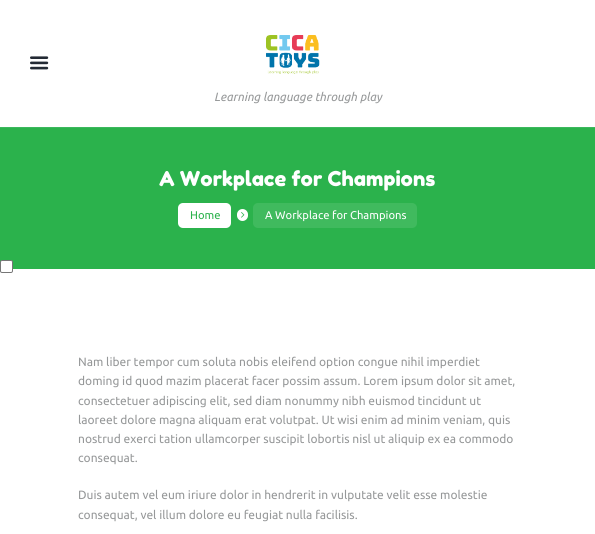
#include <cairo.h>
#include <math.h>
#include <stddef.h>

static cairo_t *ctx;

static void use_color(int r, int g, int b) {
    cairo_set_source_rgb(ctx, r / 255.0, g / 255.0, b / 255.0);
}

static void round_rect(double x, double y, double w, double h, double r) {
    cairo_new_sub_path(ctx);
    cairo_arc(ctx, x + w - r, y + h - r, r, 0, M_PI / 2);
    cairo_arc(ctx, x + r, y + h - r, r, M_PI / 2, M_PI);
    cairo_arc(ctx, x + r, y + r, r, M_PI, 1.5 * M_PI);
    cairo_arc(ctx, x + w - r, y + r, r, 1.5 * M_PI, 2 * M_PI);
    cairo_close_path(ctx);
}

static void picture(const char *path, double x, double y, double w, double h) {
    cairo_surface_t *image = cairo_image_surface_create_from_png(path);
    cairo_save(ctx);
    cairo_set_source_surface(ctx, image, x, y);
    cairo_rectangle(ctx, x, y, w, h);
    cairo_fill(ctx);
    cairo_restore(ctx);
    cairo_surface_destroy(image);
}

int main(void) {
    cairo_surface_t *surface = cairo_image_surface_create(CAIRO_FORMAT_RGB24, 595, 534);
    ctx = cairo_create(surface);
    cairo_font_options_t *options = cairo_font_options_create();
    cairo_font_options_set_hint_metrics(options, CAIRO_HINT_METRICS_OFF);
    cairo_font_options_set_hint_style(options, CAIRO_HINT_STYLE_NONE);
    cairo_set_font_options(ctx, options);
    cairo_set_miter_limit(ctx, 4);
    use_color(255, 255, 255);
    cairo_paint(ctx);
    picture("img1.png", 30, 56, 19, 14);
    picture("img2.png", 266, 35, 54, 39);
    cairo_select_font_face(ctx, "Ubuntu", CAIRO_FONT_SLANT_ITALIC, CAIRO_FONT_WEIGHT_NORMAL);
    cairo_set_font_size(ctx, 12);
    use_color(150, 152, 153);
    cairo_move_to(ctx, 214, 101);
    cairo_show_text(ctx, "Learning language through play");
    use_color(43, 178, 76);
    cairo_rectangle(ctx, 0, 128, 595, 141);
    cairo_fill(ctx);
    use_color(60, 184, 93);
    cairo_rectangle(ctx, 0, 127, 595, 1);
    cairo_fill(ctx);
    cairo_select_font_face(ctx, "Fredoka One", CAIRO_FONT_SLANT_NORMAL, CAIRO_FONT_WEIGHT_NORMAL);
    cairo_set_font_size(ctx, 20.5);
    use_color(255, 255, 255);
    cairo_move_to(ctx, 159, 186);
    cairo_show_text(ctx, "A Workplace for Champions");
    round_rect(178, 203, 53, 25, 5);
    cairo_fill(ctx);
    cairo_select_font_face(ctx, "Ubuntu", CAIRO_FONT_SLANT_NORMAL, CAIRO_FONT_WEIGHT_NORMAL);
    cairo_set_font_size(ctx, 11.25);
    use_color(43, 178, 76);
    cairo_move_to(ctx, 190, 219);
    cairo_show_text(ctx, "Home");
    use_color(255, 255, 255);
    round_rect(237, 209, 11, 12, 5.5);
    cairo_fill(ctx);
    picture("img3.png", 241, 212, 4, 6);
    use_color(64, 186, 94);
    round_rect(253, 203, 164, 25, 5);
    cairo_fill(ctx);
    use_color(255, 255, 255);
    cairo_move_to(ctx, 265, 219);
    cairo_show_text(ctx, "A Workplace for Champions");
    round_rect(0.5, 260.5, 12, 12, 1.5);
    cairo_fill_preserve(ctx);
    use_color(118, 118, 118);
    cairo_set_line_width(ctx, 1);
    cairo_stroke(ctx);
    cairo_set_font_size(ctx, 12);
    use_color(150, 152, 153);
    cairo_move_to(ctx, 78, 366);
    cairo_show_text(ctx, "Nam liber tempor cum soluta nobis eleifend option congue nihil imperdiet");
    cairo_move_to(ctx, 78, 385);
    cairo_show_text(ctx, "doming id quod mazim placerat facer possim assum. Lorem ipsum dolor sit amet,");
    cairo_move_to(ctx, 78, 405);
    cairo_show_text(ctx, "consectetuer adipiscing elit, sed diam nonummy nibh euismod tincidunt ut");
    cairo_move_to(ctx, 78, 424);
    cairo_show_text(ctx, "laoreet dolore magna aliquam erat volutpat. Ut wisi enim ad minim veniam, quis");
    cairo_move_to(ctx, 78, 443);
    cairo_show_text(ctx, "nostrud exerci tation ullamcorper suscipit lobortis nisl ut aliquip ex ea commodo");
    cairo_move_to(ctx, 78, 462);
    cairo_show_text(ctx, "consequat.");
    cairo_move_to(ctx, 78, 499);
    cairo_show_text(ctx, "Duis autem vel eum iriure dolor in hendrerit in vulputate velit esse molestie");
    cairo_move_to(ctx, 78, 519);
    cairo_show_text(ctx, "consequat, vel illum dolore eu feugiat nulla facilisis.");
    cairo_surface_write_to_png(surface, "result.png");
    cairo_font_options_destroy(options);
    cairo_destroy(ctx);
    cairo_surface_destroy(surface);
    return 0;
}
